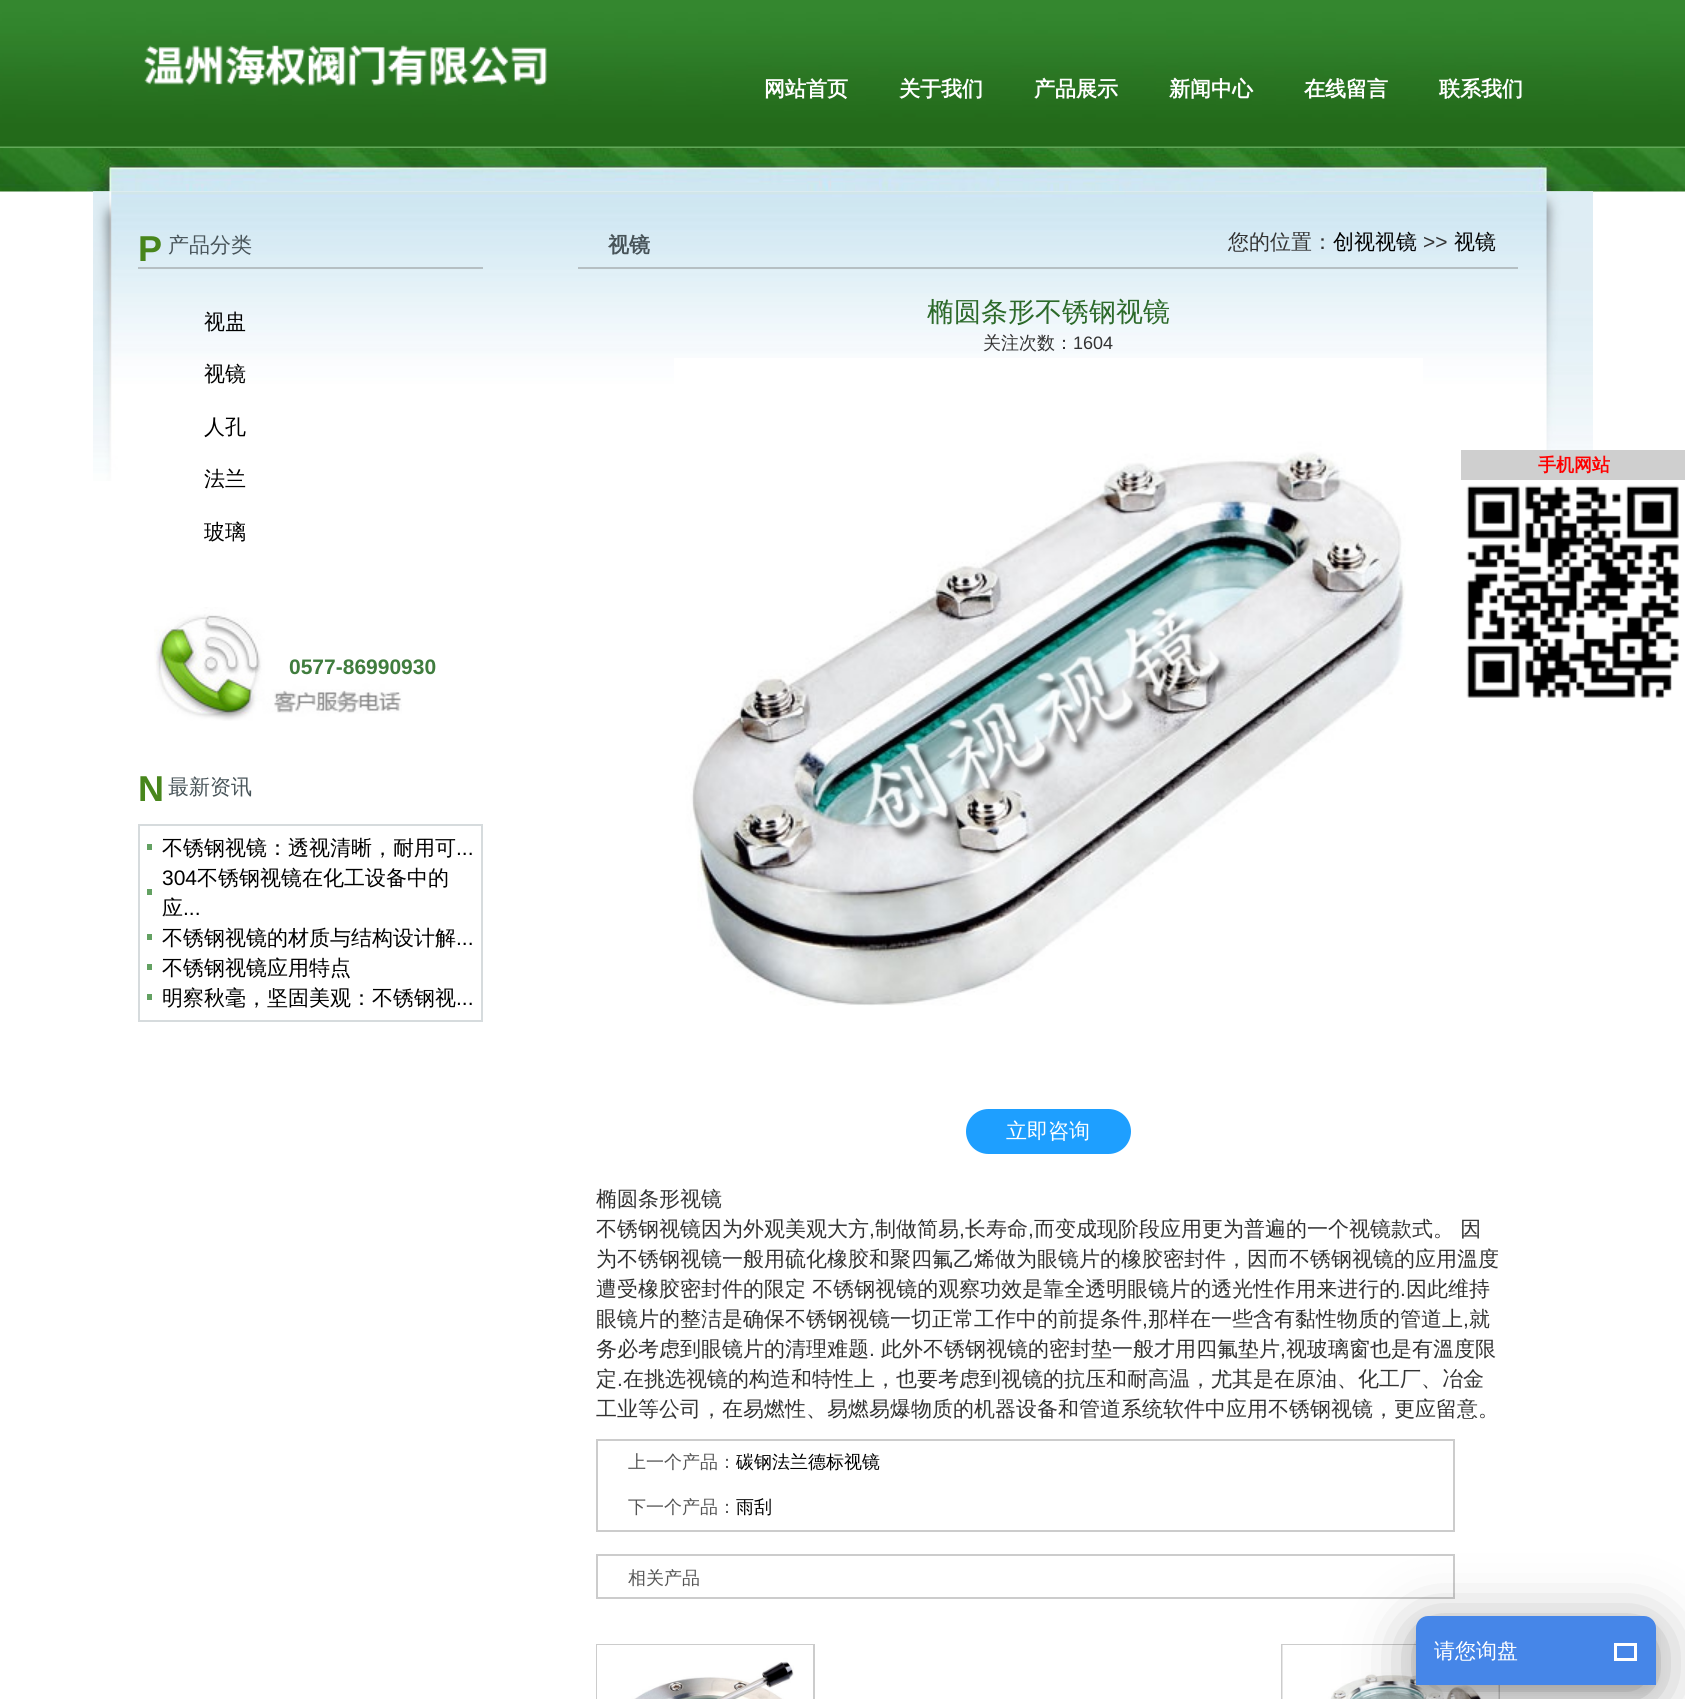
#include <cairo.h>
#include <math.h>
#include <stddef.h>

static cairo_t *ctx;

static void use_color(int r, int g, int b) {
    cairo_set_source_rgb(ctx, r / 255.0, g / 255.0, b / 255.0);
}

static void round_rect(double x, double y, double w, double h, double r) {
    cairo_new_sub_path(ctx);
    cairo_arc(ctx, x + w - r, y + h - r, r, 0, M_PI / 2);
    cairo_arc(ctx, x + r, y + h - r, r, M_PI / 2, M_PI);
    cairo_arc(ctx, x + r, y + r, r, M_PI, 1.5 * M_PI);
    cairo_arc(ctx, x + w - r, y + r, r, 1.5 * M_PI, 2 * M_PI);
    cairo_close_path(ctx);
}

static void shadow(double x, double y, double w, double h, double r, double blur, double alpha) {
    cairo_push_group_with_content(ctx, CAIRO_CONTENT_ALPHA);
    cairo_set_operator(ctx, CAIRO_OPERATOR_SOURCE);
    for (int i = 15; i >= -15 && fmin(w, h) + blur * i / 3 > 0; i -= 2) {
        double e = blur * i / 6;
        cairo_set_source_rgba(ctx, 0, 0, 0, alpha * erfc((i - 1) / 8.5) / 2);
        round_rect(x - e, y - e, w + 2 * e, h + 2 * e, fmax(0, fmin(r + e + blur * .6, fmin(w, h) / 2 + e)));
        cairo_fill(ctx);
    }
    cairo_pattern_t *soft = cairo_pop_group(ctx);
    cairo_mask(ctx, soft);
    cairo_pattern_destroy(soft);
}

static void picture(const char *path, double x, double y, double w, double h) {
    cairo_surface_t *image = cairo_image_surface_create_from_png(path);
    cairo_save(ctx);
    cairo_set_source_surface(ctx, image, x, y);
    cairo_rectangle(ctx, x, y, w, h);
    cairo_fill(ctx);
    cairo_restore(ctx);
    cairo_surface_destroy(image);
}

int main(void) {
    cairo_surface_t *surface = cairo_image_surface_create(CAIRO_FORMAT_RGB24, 1685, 1699);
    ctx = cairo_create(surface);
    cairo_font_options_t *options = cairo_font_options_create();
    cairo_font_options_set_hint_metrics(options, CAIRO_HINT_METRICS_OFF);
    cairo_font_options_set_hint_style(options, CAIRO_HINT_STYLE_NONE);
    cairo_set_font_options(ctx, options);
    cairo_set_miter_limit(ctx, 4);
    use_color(255, 255, 255);
    cairo_paint(ctx);
    picture("img1.png", 0, 0, 1685, 148);
    picture("img2.png", 144, 45, 403, 41);
    cairo_select_font_face(ctx, "WenQuanYi Zen Hei", CAIRO_FONT_SLANT_NORMAL, CAIRO_FONT_WEIGHT_BOLD);
    cairo_set_font_size(ctx, 21);
    use_color(255, 255, 255);
    cairo_move_to(ctx, 764, 96);
    cairo_show_text(ctx, "网站首页");
    cairo_move_to(ctx, 899, 96);
    cairo_show_text(ctx, "关于我们");
    cairo_move_to(ctx, 1034, 96);
    cairo_show_text(ctx, "产品展示");
    cairo_move_to(ctx, 1169, 96);
    cairo_show_text(ctx, "新闻中心");
    cairo_move_to(ctx, 1304, 96);
    cairo_show_text(ctx, "在线留言");
    cairo_move_to(ctx, 1439, 96);
    cairo_show_text(ctx, "联系我们");
    picture("img3.png", 0, 148, 1685, 44);
    picture("img4.png", 93, 191, 1500, 1);
    picture("img5.png", 93, 191, 1500, 290);
    cairo_select_font_face(ctx, "Liberation Sans", CAIRO_FONT_SLANT_NORMAL, CAIRO_FONT_WEIGHT_BOLD);
    cairo_set_font_size(ctx, 36);
    use_color(72, 134, 28);
    cairo_move_to(ctx, 138, 261);
    cairo_show_text(ctx, "P");
    use_color(181, 191, 195);
    cairo_rectangle(ctx, 138, 267, 345, 2);
    cairo_fill(ctx);
    cairo_select_font_face(ctx, "WenQuanYi Zen Hei Medium", CAIRO_FONT_SLANT_NORMAL, CAIRO_FONT_WEIGHT_NORMAL);
    cairo_set_font_size(ctx, 21);
    use_color(72, 84, 89);
    cairo_move_to(ctx, 168, 252);
    cairo_show_text(ctx, "产品分类");
    use_color(0, 0, 0);
    cairo_move_to(ctx, 204, 329);
    cairo_show_text(ctx, "视盅");
    cairo_move_to(ctx, 204, 381);
    cairo_show_text(ctx, "视镜");
    cairo_move_to(ctx, 204, 434);
    cairo_show_text(ctx, "人孔");
    cairo_move_to(ctx, 204, 486);
    cairo_show_text(ctx, "法兰");
    cairo_move_to(ctx, 204, 539);
    cairo_show_text(ctx, "玻璃");
    picture("img6.png", 154, 607, 248, 114);
    cairo_select_font_face(ctx, "Liberation Sans", CAIRO_FONT_SLANT_NORMAL, CAIRO_FONT_WEIGHT_BOLD);
    use_color(64, 125, 62);
    cairo_move_to(ctx, 289, 674);
    cairo_show_text(ctx, "0577-86990930");
    cairo_set_font_size(ctx, 36);
    use_color(72, 134, 28);
    cairo_move_to(ctx, 138, 801);
    cairo_show_text(ctx, "N");
    cairo_select_font_face(ctx, "WenQuanYi Zen Hei Medium", CAIRO_FONT_SLANT_NORMAL, CAIRO_FONT_WEIGHT_NORMAL);
    cairo_set_font_size(ctx, 21);
    use_color(72, 84, 89);
    cairo_move_to(ctx, 168, 794);
    cairo_show_text(ctx, "最新资讯");
    cairo_rectangle(ctx, 139, 825, 343, 196);
    use_color(214, 219, 221);
    cairo_stroke(ctx);
    use_color(99, 161, 98);
    cairo_rectangle(ctx, 147, 844, 5, 6);
    cairo_fill(ctx);
    use_color(0, 0, 0);
    cairo_move_to(ctx, 162, 855);
    cairo_show_text(ctx, "不锈钢视镜：透视清晰，耐用可");
    cairo_select_font_face(ctx, "Liberation Sans", CAIRO_FONT_SLANT_NORMAL, CAIRO_FONT_WEIGHT_NORMAL);
    cairo_move_to(ctx, 456, 855);
    cairo_show_text(ctx, "...");
    use_color(99, 161, 98);
    cairo_rectangle(ctx, 147, 889, 5, 6);
    cairo_fill(ctx);
    use_color(0, 0, 0);
    cairo_move_to(ctx, 162, 885);
    cairo_show_text(ctx, "304");
    cairo_select_font_face(ctx, "WenQuanYi Zen Hei Medium", CAIRO_FONT_SLANT_NORMAL, CAIRO_FONT_WEIGHT_NORMAL);
    cairo_move_to(ctx, 197, 885);
    cairo_show_text(ctx, "不锈钢视镜在化工设备中的");
    cairo_move_to(ctx, 162, 915);
    cairo_show_text(ctx, "应");
    cairo_select_font_face(ctx, "Liberation Sans", CAIRO_FONT_SLANT_NORMAL, CAIRO_FONT_WEIGHT_NORMAL);
    cairo_move_to(ctx, 183, 915);
    cairo_show_text(ctx, "...");
    use_color(99, 161, 98);
    cairo_rectangle(ctx, 147, 934, 5, 6);
    cairo_fill(ctx);
    cairo_select_font_face(ctx, "WenQuanYi Zen Hei Medium", CAIRO_FONT_SLANT_NORMAL, CAIRO_FONT_WEIGHT_NORMAL);
    use_color(0, 0, 0);
    cairo_move_to(ctx, 162, 945);
    cairo_show_text(ctx, "不锈钢视镜的材质与结构设计解");
    cairo_select_font_face(ctx, "Liberation Sans", CAIRO_FONT_SLANT_NORMAL, CAIRO_FONT_WEIGHT_NORMAL);
    cairo_move_to(ctx, 456, 945);
    cairo_show_text(ctx, "...");
    use_color(99, 161, 98);
    cairo_rectangle(ctx, 147, 964, 5, 6);
    cairo_fill(ctx);
    cairo_select_font_face(ctx, "WenQuanYi Zen Hei Medium", CAIRO_FONT_SLANT_NORMAL, CAIRO_FONT_WEIGHT_NORMAL);
    use_color(0, 0, 0);
    cairo_move_to(ctx, 162, 975);
    cairo_show_text(ctx, "不锈钢视镜应用特点");
    use_color(99, 161, 98);
    cairo_rectangle(ctx, 147, 994, 5, 6);
    cairo_fill(ctx);
    use_color(0, 0, 0);
    cairo_move_to(ctx, 162, 1005);
    cairo_show_text(ctx, "明察秋毫，坚固美观：不锈钢视");
    cairo_select_font_face(ctx, "Liberation Sans", CAIRO_FONT_SLANT_NORMAL, CAIRO_FONT_WEIGHT_NORMAL);
    cairo_move_to(ctx, 456, 1005);
    cairo_show_text(ctx, "...");
    use_color(181, 191, 195);
    cairo_rectangle(ctx, 578, 267, 940, 2);
    cairo_fill(ctx);
    cairo_select_font_face(ctx, "WenQuanYi Zen Hei", CAIRO_FONT_SLANT_NORMAL, CAIRO_FONT_WEIGHT_BOLD);
    use_color(72, 84, 89);
    cairo_move_to(ctx, 608, 252);
    cairo_show_text(ctx, "视镜");
    cairo_select_font_face(ctx, "WenQuanYi Zen Hei Medium", CAIRO_FONT_SLANT_NORMAL, CAIRO_FONT_WEIGHT_NORMAL);
    use_color(51, 51, 51);
    cairo_move_to(ctx, 1228, 249);
    cairo_show_text(ctx, "您的位置：");
    use_color(0, 0, 0);
    cairo_move_to(ctx, 1333, 249);
    cairo_show_text(ctx, "创视视镜");
    cairo_select_font_face(ctx, "Liberation Sans", CAIRO_FONT_SLANT_NORMAL, CAIRO_FONT_WEIGHT_NORMAL);
    use_color(51, 51, 51);
    cairo_move_to(ctx, 1423, 249);
    cairo_show_text(ctx, ">>");
    cairo_select_font_face(ctx, "WenQuanYi Zen Hei Medium", CAIRO_FONT_SLANT_NORMAL, CAIRO_FONT_WEIGHT_NORMAL);
    use_color(0, 0, 0);
    cairo_move_to(ctx, 1454, 249);
    cairo_show_text(ctx, "视镜");
    cairo_set_font_size(ctx, 27);
    use_color(44, 106, 42);
    cairo_move_to(ctx, 927, 321);
    cairo_show_text(ctx, "椭圆条形不锈钢视镜");
    cairo_set_font_size(ctx, 18);
    use_color(51, 51, 51);
    cairo_move_to(ctx, 983, 349);
    cairo_show_text(ctx, "关注次数：");
    cairo_select_font_face(ctx, "Liberation Sans", CAIRO_FONT_SLANT_NORMAL, CAIRO_FONT_WEIGHT_NORMAL);
    cairo_move_to(ctx, 1073, 349);
    cairo_show_text(ctx, "1604");
    picture("img7.png", 674, 358, 749, 648);
    use_color(30, 159, 255);
    round_rect(966, 1109, 165, 45, 22.5);
    cairo_fill(ctx);
    cairo_select_font_face(ctx, "WenQuanYi Zen Hei Medium", CAIRO_FONT_SLANT_NORMAL, CAIRO_FONT_WEIGHT_NORMAL);
    cairo_set_font_size(ctx, 21);
    use_color(255, 255, 255);
    cairo_move_to(ctx, 1006, 1138);
    cairo_show_text(ctx, "立即咨询");
    use_color(51, 51, 51);
    cairo_move_to(ctx, 596, 1206);
    cairo_show_text(ctx, "椭圆条形视镜");
    cairo_move_to(ctx, 596, 1236);
    cairo_show_text(ctx, "不锈钢视镜因为外观美观大方");
    cairo_select_font_face(ctx, "Liberation Sans", CAIRO_FONT_SLANT_NORMAL, CAIRO_FONT_WEIGHT_NORMAL);
    cairo_move_to(ctx, 869, 1236);
    cairo_show_text(ctx, ",");
    cairo_select_font_face(ctx, "WenQuanYi Zen Hei Medium", CAIRO_FONT_SLANT_NORMAL, CAIRO_FONT_WEIGHT_NORMAL);
    cairo_move_to(ctx, 875, 1236);
    cairo_show_text(ctx, "制做简易");
    cairo_select_font_face(ctx, "Liberation Sans", CAIRO_FONT_SLANT_NORMAL, CAIRO_FONT_WEIGHT_NORMAL);
    cairo_move_to(ctx, 959, 1236);
    cairo_show_text(ctx, ",");
    cairo_select_font_face(ctx, "WenQuanYi Zen Hei Medium", CAIRO_FONT_SLANT_NORMAL, CAIRO_FONT_WEIGHT_NORMAL);
    cairo_move_to(ctx, 965, 1236);
    cairo_show_text(ctx, "长寿命");
    cairo_select_font_face(ctx, "Liberation Sans", CAIRO_FONT_SLANT_NORMAL, CAIRO_FONT_WEIGHT_NORMAL);
    cairo_move_to(ctx, 1028, 1236);
    cairo_show_text(ctx, ",");
    cairo_select_font_face(ctx, "WenQuanYi Zen Hei Medium", CAIRO_FONT_SLANT_NORMAL, CAIRO_FONT_WEIGHT_NORMAL);
    cairo_move_to(ctx, 1034, 1236);
    cairo_show_text(ctx, "而变成现阶段应用更为普遍的一个视镜款式。 因");
    cairo_move_to(ctx, 596, 1266);
    cairo_show_text(ctx, "为不锈钢视镜一般用硫化橡胶和聚四氟乙烯做为眼镜片的橡胶密封件，因而不锈钢视镜的应用溫度");
    cairo_move_to(ctx, 596, 1296);
    cairo_show_text(ctx, "遭受橡胶密封件的限定 不锈钢视镜的观察功效是靠全透明眼镜片的透光性作用来进行的");
    cairo_select_font_face(ctx, "Liberation Sans", CAIRO_FONT_SLANT_NORMAL, CAIRO_FONT_WEIGHT_NORMAL);
    cairo_move_to(ctx, 1400, 1296);
    cairo_show_text(ctx, ".");
    cairo_select_font_face(ctx, "WenQuanYi Zen Hei Medium", CAIRO_FONT_SLANT_NORMAL, CAIRO_FONT_WEIGHT_NORMAL);
    cairo_move_to(ctx, 1406, 1296);
    cairo_show_text(ctx, "因此维持");
    cairo_move_to(ctx, 596, 1326);
    cairo_show_text(ctx, "眼镜片的整洁是确保不锈钢视镜一切正常工作中的前提条件");
    cairo_select_font_face(ctx, "Liberation Sans", CAIRO_FONT_SLANT_NORMAL, CAIRO_FONT_WEIGHT_NORMAL);
    cairo_move_to(ctx, 1142, 1326);
    cairo_show_text(ctx, ",");
    cairo_select_font_face(ctx, "WenQuanYi Zen Hei Medium", CAIRO_FONT_SLANT_NORMAL, CAIRO_FONT_WEIGHT_NORMAL);
    cairo_move_to(ctx, 1148, 1326);
    cairo_show_text(ctx, "那样在一些含有黏性物质的管道上");
    cairo_select_font_face(ctx, "Liberation Sans", CAIRO_FONT_SLANT_NORMAL, CAIRO_FONT_WEIGHT_NORMAL);
    cairo_move_to(ctx, 1463, 1326);
    cairo_show_text(ctx, ",");
    cairo_select_font_face(ctx, "WenQuanYi Zen Hei Medium", CAIRO_FONT_SLANT_NORMAL, CAIRO_FONT_WEIGHT_NORMAL);
    cairo_move_to(ctx, 1469, 1326);
    cairo_show_text(ctx, "就");
    cairo_move_to(ctx, 596, 1356);
    cairo_show_text(ctx, "务必考虑到眼镜片的清理难题");
    cairo_select_font_face(ctx, "Liberation Sans", CAIRO_FONT_SLANT_NORMAL, CAIRO_FONT_WEIGHT_NORMAL);
    cairo_move_to(ctx, 869, 1356);
    cairo_show_text(ctx, ".");
    cairo_select_font_face(ctx, "WenQuanYi Zen Hei Medium", CAIRO_FONT_SLANT_NORMAL, CAIRO_FONT_WEIGHT_NORMAL);
    cairo_move_to(ctx, 881, 1356);
    cairo_show_text(ctx, "此外不锈钢视镜的密封垫一般才用四氟垫片");
    cairo_select_font_face(ctx, "Liberation Sans", CAIRO_FONT_SLANT_NORMAL, CAIRO_FONT_WEIGHT_NORMAL);
    cairo_move_to(ctx, 1280, 1356);
    cairo_show_text(ctx, ",");
    cairo_select_font_face(ctx, "WenQuanYi Zen Hei Medium", CAIRO_FONT_SLANT_NORMAL, CAIRO_FONT_WEIGHT_NORMAL);
    cairo_move_to(ctx, 1286, 1356);
    cairo_show_text(ctx, "视玻璃窗也是有溫度限");
    cairo_move_to(ctx, 596, 1386);
    cairo_show_text(ctx, "定");
    cairo_select_font_face(ctx, "Liberation Sans", CAIRO_FONT_SLANT_NORMAL, CAIRO_FONT_WEIGHT_NORMAL);
    cairo_move_to(ctx, 617, 1386);
    cairo_show_text(ctx, ".");
    cairo_select_font_face(ctx, "WenQuanYi Zen Hei Medium", CAIRO_FONT_SLANT_NORMAL, CAIRO_FONT_WEIGHT_NORMAL);
    cairo_move_to(ctx, 623, 1386);
    cairo_show_text(ctx, "在挑选视镜的构造和特性上，也要考虑到视镜的抗压和耐高温，尤其是在原油、化工厂、冶金");
    cairo_move_to(ctx, 596, 1416);
    cairo_show_text(ctx, "工业等公司，在易燃性、易燃易爆物质的机器设备和管道系统软件中应用不锈钢视镜，更应留意。");
    cairo_rectangle(ctx, 597, 1440, 857, 91);
    use_color(204, 204, 204);
    cairo_stroke(ctx);
    cairo_set_font_size(ctx, 18);
    use_color(85, 85, 85);
    cairo_move_to(ctx, 628, 1468);
    cairo_show_text(ctx, "上一个产品：");
    use_color(0, 0, 0);
    cairo_move_to(ctx, 736, 1468);
    cairo_show_text(ctx, "碳钢法兰德标视镜");
    use_color(85, 85, 85);
    cairo_move_to(ctx, 628, 1513);
    cairo_show_text(ctx, "下一个产品：");
    use_color(0, 0, 0);
    cairo_move_to(ctx, 736, 1513);
    cairo_show_text(ctx, "雨刮");
    cairo_rectangle(ctx, 597, 1555, 857, 43);
    use_color(204, 204, 204);
    cairo_stroke(ctx);
    use_color(85, 85, 85);
    cairo_move_to(ctx, 628, 1584);
    cairo_show_text(ctx, "相关产品");
    cairo_rectangle(ctx, 597, 1645, 217, 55);
    use_color(204, 204, 204);
    cairo_stroke(ctx);
    picture("img8.png", 597, 1645, 216, 54);
    cairo_rectangle(ctx, 1282, 1645, 217, 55);
    cairo_stroke(ctx);
    picture("img9.png", 1282, 1645, 217, 54);
    use_color(207, 207, 207);
    cairo_rectangle(ctx, 1461, 450, 224, 30);
    cairo_fill(ctx);
    cairo_select_font_face(ctx, "WenQuanYi Zen Hei", CAIRO_FONT_SLANT_NORMAL, CAIRO_FONT_WEIGHT_BOLD);
    use_color(255, 0, 0);
    cairo_move_to(ctx, 1538, 471);
    cairo_show_text(ctx, "手机网站");
    picture("img10.png", 1461, 480, 224, 225);
    use_color(0, 0, 0);
    shadow(1416, 1628, 240, 69, 12, 30, 0.4);
    shadow(1416, 1622, 240, 69, 12, 6, 0.12);
    use_color(70, 134, 232);
    cairo_new_path(ctx);
    cairo_move_to(ctx, 1428, 1616);
    cairo_line_to(ctx, 1644, 1616);
    cairo_curve_to(ctx, 1650.5, 1616, 1656, 1621.5, 1656, 1628);
    cairo_line_to(ctx, 1656, 1685);
    cairo_line_to(ctx, 1416, 1685);
    cairo_line_to(ctx, 1416, 1628);
    cairo_curve_to(ctx, 1416, 1621.5, 1421.5, 1616, 1428, 1616);
    cairo_close_path(ctx);
    cairo_fill(ctx);
    cairo_select_font_face(ctx, "WenQuanYi Zen Hei Medium", CAIRO_FONT_SLANT_NORMAL, CAIRO_FONT_WEIGHT_NORMAL);
    cairo_set_font_size(ctx, 21);
    use_color(255, 255, 255);
    cairo_move_to(ctx, 1434, 1658);
    cairo_show_text(ctx, "请您询盘");
    cairo_rectangle(ctx, 1615.5, 1644.5, 20, 15);
    cairo_set_line_width(ctx, 3);
    cairo_stroke(ctx);
    cairo_surface_write_to_png(surface, "result.png");
    cairo_font_options_destroy(options);
    cairo_destroy(ctx);
    cairo_surface_destroy(surface);
    return 0;
}
